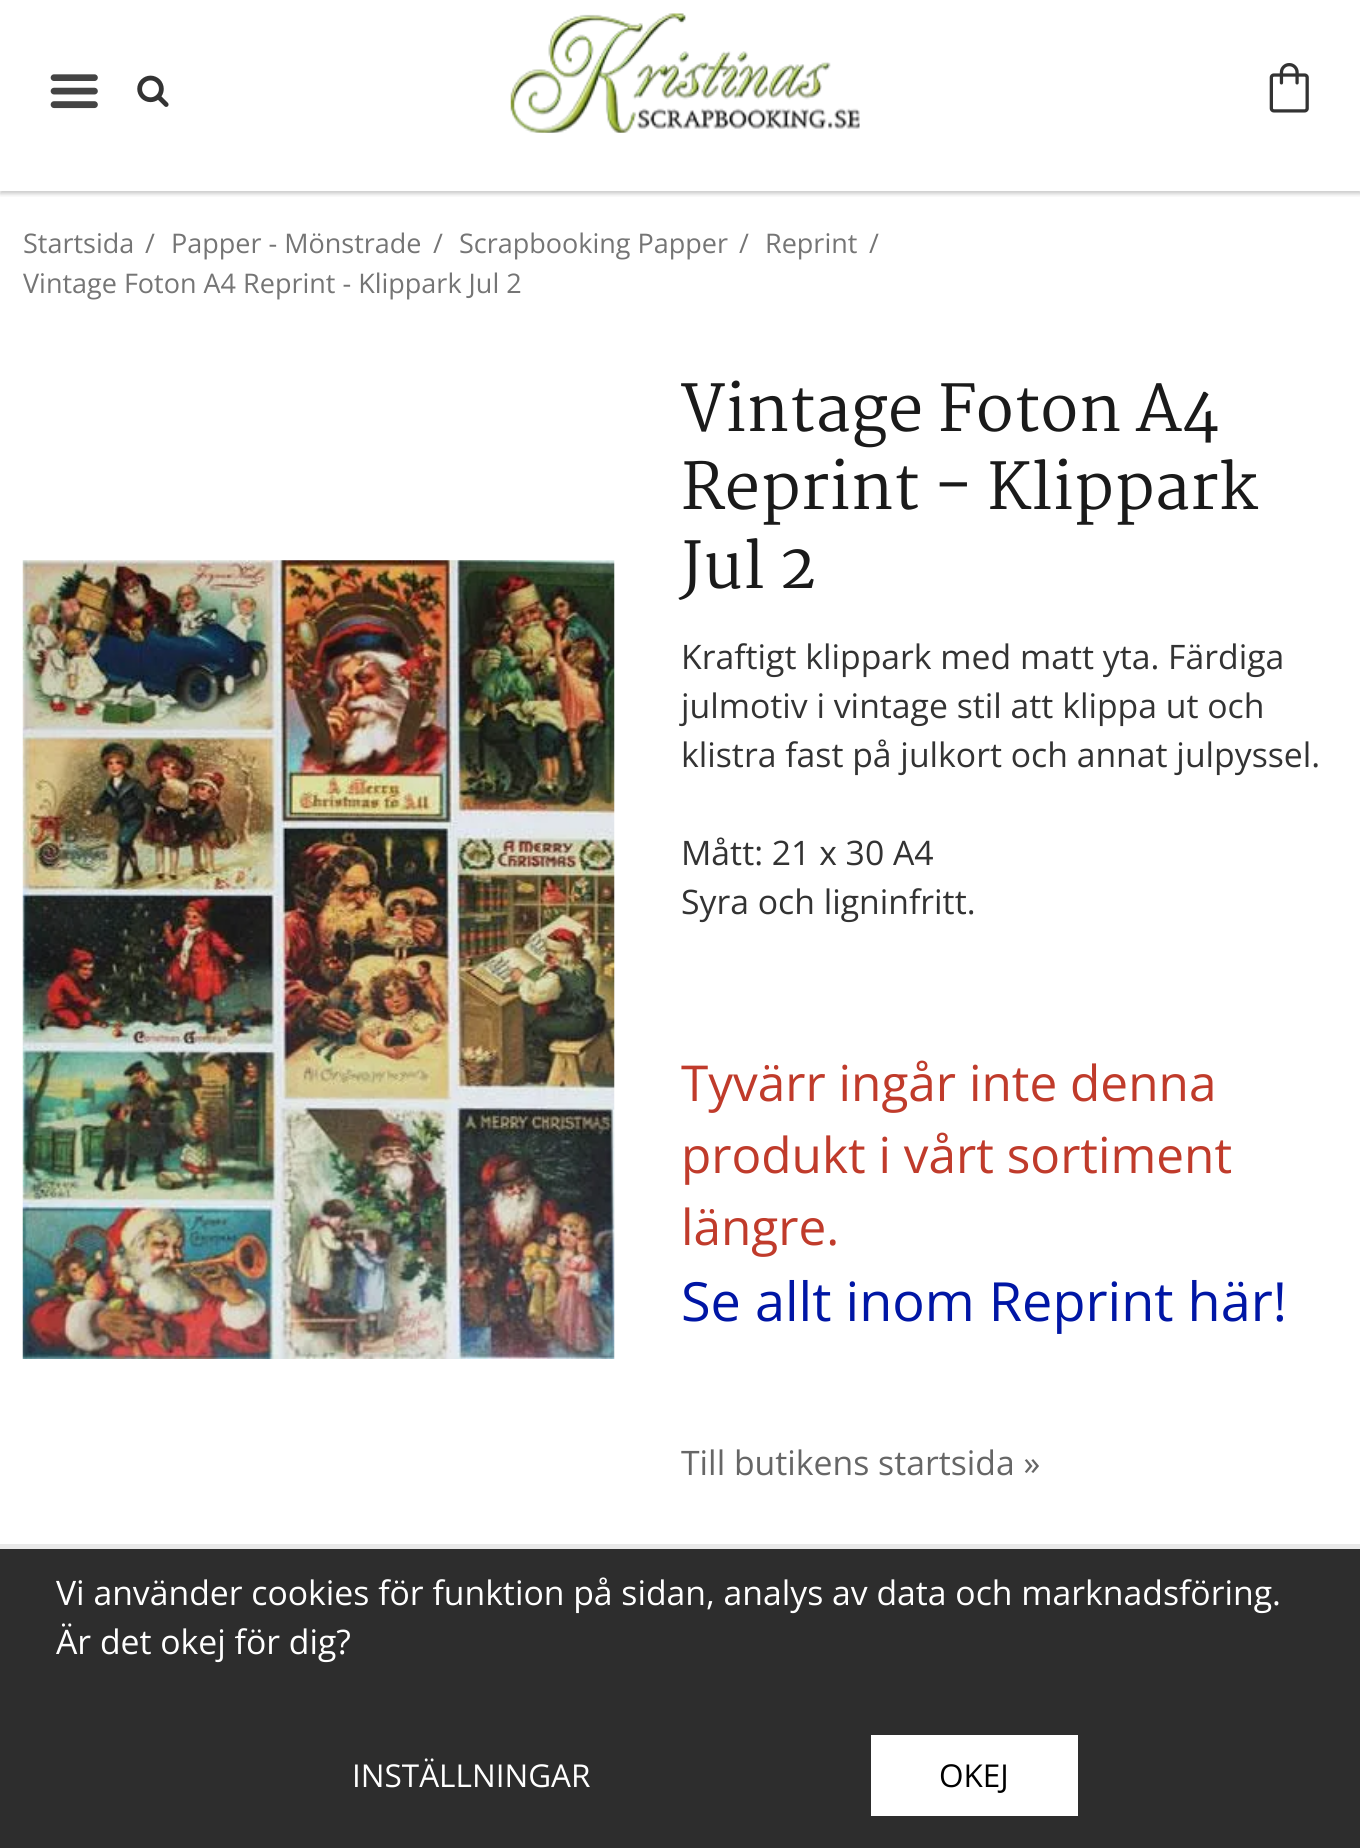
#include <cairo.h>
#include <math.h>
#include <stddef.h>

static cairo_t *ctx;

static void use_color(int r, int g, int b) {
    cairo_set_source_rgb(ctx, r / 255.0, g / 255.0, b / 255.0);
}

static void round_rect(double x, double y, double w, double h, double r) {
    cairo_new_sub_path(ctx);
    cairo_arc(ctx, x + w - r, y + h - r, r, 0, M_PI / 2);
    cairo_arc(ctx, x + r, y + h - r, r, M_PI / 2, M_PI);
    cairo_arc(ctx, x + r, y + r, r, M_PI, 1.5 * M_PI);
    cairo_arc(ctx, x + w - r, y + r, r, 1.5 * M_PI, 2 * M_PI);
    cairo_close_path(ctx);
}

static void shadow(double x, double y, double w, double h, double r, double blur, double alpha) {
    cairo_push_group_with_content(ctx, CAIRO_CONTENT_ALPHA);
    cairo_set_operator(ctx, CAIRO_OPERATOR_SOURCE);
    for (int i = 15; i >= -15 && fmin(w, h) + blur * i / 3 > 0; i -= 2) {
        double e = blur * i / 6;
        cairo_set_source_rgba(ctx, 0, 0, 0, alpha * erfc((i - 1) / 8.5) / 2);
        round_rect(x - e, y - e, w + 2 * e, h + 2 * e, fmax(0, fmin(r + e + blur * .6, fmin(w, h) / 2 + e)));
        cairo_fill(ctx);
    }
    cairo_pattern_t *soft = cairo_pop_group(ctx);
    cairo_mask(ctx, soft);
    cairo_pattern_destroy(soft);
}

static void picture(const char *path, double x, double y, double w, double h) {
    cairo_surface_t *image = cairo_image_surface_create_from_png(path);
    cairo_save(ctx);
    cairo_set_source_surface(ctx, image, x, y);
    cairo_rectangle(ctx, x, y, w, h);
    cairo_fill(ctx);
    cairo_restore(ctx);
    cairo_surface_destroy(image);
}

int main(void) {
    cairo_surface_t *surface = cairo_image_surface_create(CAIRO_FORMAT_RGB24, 1360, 1848);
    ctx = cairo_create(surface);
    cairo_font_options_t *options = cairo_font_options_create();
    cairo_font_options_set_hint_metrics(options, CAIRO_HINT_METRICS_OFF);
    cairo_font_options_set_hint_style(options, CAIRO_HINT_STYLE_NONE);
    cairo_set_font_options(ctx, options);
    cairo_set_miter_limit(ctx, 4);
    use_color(255, 255, 255);
    cairo_paint(ctx);
    cairo_save(ctx);
    cairo_rectangle(ctx, 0, 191, 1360, 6);
    cairo_clip(ctx);
    use_color(0, 0, 0);
    shadow(0, 2, 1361, 192, 0, 2, 0.2);
    cairo_restore(ctx);
    picture("img1.png", 50, 74, 48, 35);
    picture("img2.png", 137, 75, 32, 32);
    picture("img3.png", 510, 13, 350, 120);
    picture("img4.png", 1269, 63, 40, 50);
    cairo_select_font_face(ctx, "Open Sans", CAIRO_FONT_SLANT_NORMAL, CAIRO_FONT_WEIGHT_NORMAL);
    cairo_set_font_size(ctx, 27);
    use_color(117, 117, 117);
    cairo_move_to(ctx, 23, 253);
    cairo_show_text(ctx, "Startsida");
    cairo_move_to(ctx, 145, 253);
    cairo_show_text(ctx, "/");
    cairo_move_to(ctx, 171, 253);
    cairo_show_text(ctx, "Papper - Mönstrade");
    cairo_move_to(ctx, 433, 253);
    cairo_show_text(ctx, "/");
    cairo_move_to(ctx, 459, 253);
    cairo_show_text(ctx, "Scrapbooking Papper");
    cairo_move_to(ctx, 739, 253);
    cairo_show_text(ctx, "/");
    cairo_move_to(ctx, 765, 253);
    cairo_show_text(ctx, "Reprint");
    cairo_move_to(ctx, 869, 253);
    cairo_show_text(ctx, "/");
    cairo_move_to(ctx, 23, 293);
    cairo_show_text(ctx, "Vintage Foton A4 Reprint - Klippark Jul 2");
    picture("img5.png", 22, 560, 593, 799);
    cairo_select_font_face(ctx, "Martel", CAIRO_FONT_SLANT_NORMAL, CAIRO_FONT_WEIGHT_NORMAL);
    cairo_set_font_size(ctx, 63);
    use_color(26, 26, 26);
    cairo_move_to(ctx, 681, 431);
    cairo_show_text(ctx, "Vintage Foton A4");
    cairo_move_to(ctx, 681, 509);
    cairo_show_text(ctx, "Reprint - Klippark");
    cairo_move_to(ctx, 681, 588);
    cairo_show_text(ctx, "Jul 2");
    cairo_select_font_face(ctx, "Open Sans", CAIRO_FONT_SLANT_NORMAL, CAIRO_FONT_WEIGHT_NORMAL);
    cairo_set_font_size(ctx, 33.75);
    use_color(51, 51, 51);
    cairo_move_to(ctx, 681, 669);
    cairo_show_text(ctx, "Kraftigt klippark med matt yta. Färdiga");
    cairo_move_to(ctx, 681, 718);
    cairo_show_text(ctx, "julmotiv i vintage stil att klippa ut och");
    cairo_move_to(ctx, 681, 767);
    cairo_show_text(ctx, "klistra fast på julkort och annat julpyssel.");
    cairo_move_to(ctx, 681, 865);
    cairo_show_text(ctx, "Mått: 21 x 30 A4");
    cairo_move_to(ctx, 681, 914);
    cairo_show_text(ctx, "Syra och ligninfritt.");
    cairo_set_font_size(ctx, 49.5);
    use_color(192, 59, 43);
    cairo_move_to(ctx, 681, 1101);
    cairo_show_text(ctx, "Tyvärr ingår inte denna");
    cairo_move_to(ctx, 681, 1173);
    cairo_show_text(ctx, "produkt i vårt sortiment");
    cairo_move_to(ctx, 681, 1245);
    cairo_show_text(ctx, "längre.");
    cairo_set_font_size(ctx, 54);
    use_color(0, 22, 165);
    cairo_move_to(ctx, 681, 1321);
    cairo_show_text(ctx, "Se allt inom Reprint här!");
    cairo_set_font_size(ctx, 33.75);
    use_color(102, 102, 102);
    cairo_move_to(ctx, 681, 1475);
    cairo_show_text(ctx, "Till butikens startsida »");
    use_color(45, 45, 45);
    cairo_rectangle(ctx, 0, 1549, 1360, 299);
    cairo_fill(ctx);
    use_color(233, 233, 233);
    cairo_rectangle(ctx, 0, 1544, 1360, 5);
    cairo_fill(ctx);
    use_color(255, 255, 255);
    cairo_move_to(ctx, 56, 1605);
    cairo_show_text(ctx, "Vi använder cookies för funktion på sidan, analys av data och marknadsföring.");
    cairo_move_to(ctx, 56, 1654);
    cairo_show_text(ctx, "Är det okej för dig?");
    cairo_set_font_size(ctx, 31.5);
    cairo_move_to(ctx, 352, 1787);
    cairo_show_text(ctx, "INSTÄLLNINGAR");
    cairo_rectangle(ctx, 871, 1735, 207, 81);
    cairo_fill(ctx);
    use_color(0, 0, 0);
    cairo_move_to(ctx, 939, 1787);
    cairo_show_text(ctx, "OKEJ");
    cairo_surface_write_to_png(surface, "result.png");
    cairo_font_options_destroy(options);
    cairo_destroy(ctx);
    cairo_surface_destroy(surface);
    return 0;
}
